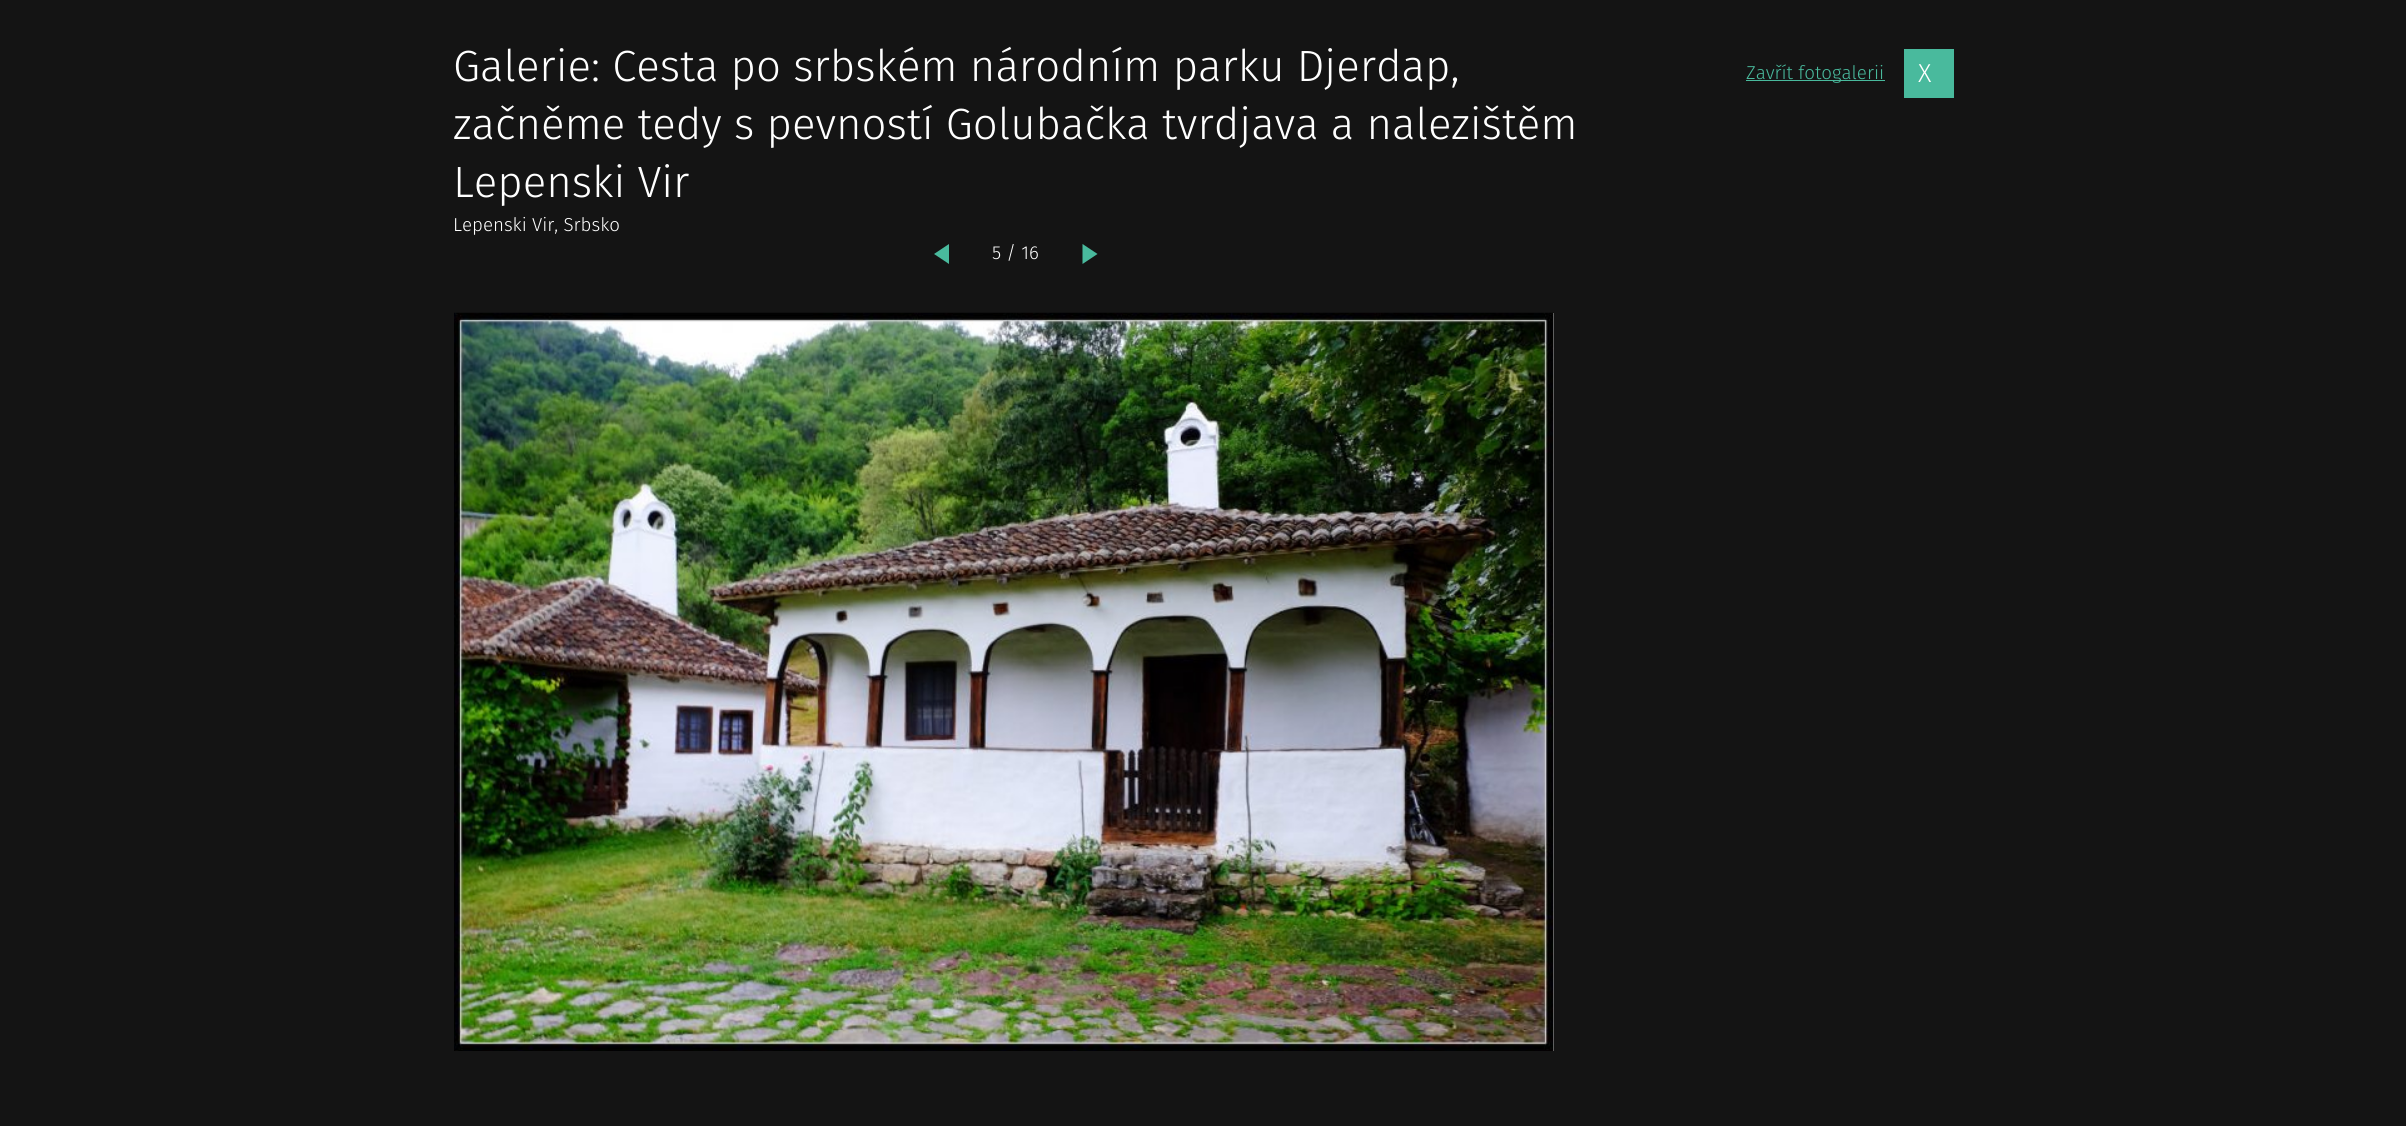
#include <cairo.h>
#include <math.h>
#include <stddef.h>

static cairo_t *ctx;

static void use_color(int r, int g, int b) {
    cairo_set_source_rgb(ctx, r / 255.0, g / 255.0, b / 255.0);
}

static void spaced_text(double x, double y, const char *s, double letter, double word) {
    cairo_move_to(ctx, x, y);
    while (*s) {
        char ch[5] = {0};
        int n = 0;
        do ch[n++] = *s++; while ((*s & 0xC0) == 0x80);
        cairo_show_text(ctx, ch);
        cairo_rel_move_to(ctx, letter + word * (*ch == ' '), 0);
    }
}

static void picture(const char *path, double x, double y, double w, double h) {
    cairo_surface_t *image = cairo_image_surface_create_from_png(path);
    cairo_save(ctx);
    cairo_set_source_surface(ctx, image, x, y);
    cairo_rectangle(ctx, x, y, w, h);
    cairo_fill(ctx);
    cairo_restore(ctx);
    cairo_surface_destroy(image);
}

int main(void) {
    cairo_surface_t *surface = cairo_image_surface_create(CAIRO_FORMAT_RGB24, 2406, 1126);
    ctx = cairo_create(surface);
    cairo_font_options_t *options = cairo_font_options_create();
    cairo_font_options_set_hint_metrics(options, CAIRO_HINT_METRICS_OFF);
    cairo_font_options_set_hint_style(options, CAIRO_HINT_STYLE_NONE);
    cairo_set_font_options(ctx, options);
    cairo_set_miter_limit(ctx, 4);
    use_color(20, 20, 20);
    cairo_paint(ctx);
    cairo_select_font_face(ctx, "Fira Sans Light", CAIRO_FONT_SLANT_NORMAL, CAIRO_FONT_WEIGHT_NORMAL);
    cairo_set_font_size(ctx, 43.75);
    use_color(255, 255, 255);
    cairo_move_to(ctx, 453, 81);
    cairo_show_text(ctx, "Galerie: Cesta po srbském národním parku Djerdap,");
    cairo_move_to(ctx, 453, 139);
    cairo_show_text(ctx, "začněme tedy s pevností Golubačka tvrdjava a nalezištěm");
    cairo_move_to(ctx, 453, 197);
    cairo_show_text(ctx, "Lepenski Vir");
    cairo_set_font_size(ctx, 18.75);
    cairo_move_to(ctx, 453, 231);
    cairo_show_text(ctx, "Lepenski Vir, Srbsko");
    use_color(73, 186, 157);
    cairo_new_path(ctx);
    cairo_move_to(ctx, 949, 244);
    cairo_line_to(ctx, 949, 264);
    cairo_line_to(ctx, 934, 254);
    cairo_close_path(ctx);
    cairo_fill(ctx);
    use_color(255, 255, 255);
    cairo_move_to(ctx, 992, 259);
    cairo_show_text(ctx, "5 / 16");
    use_color(73, 186, 157);
    cairo_new_path(ctx);
    cairo_move_to(ctx, 1082.5, 264);
    cairo_line_to(ctx, 1082.5, 244);
    cairo_line_to(ctx, 1097.5, 254);
    cairo_close_path(ctx);
    cairo_fill(ctx);
    cairo_rectangle(ctx, 1746, 80, 139, 1);
    cairo_fill(ctx);
    cairo_move_to(ctx, 1746, 79);
    cairo_show_text(ctx, "Zavřít fotogalerii");
    cairo_rectangle(ctx, 1904, 49, 50, 49);
    cairo_fill(ctx);
    cairo_set_font_size(ctx, 26);
    use_color(255, 255, 255);
    spaced_text(1918, 82, "X", 6, 0);
    use_color(218, 218, 218);
    cairo_rectangle(ctx, 1553, 313, 1, 738);
    cairo_fill(ctx);
    picture("img1.png", 454, 312, 1100, 739);
    cairo_surface_write_to_png(surface, "result.png");
    cairo_font_options_destroy(options);
    cairo_destroy(ctx);
    cairo_surface_destroy(surface);
    return 0;
}
